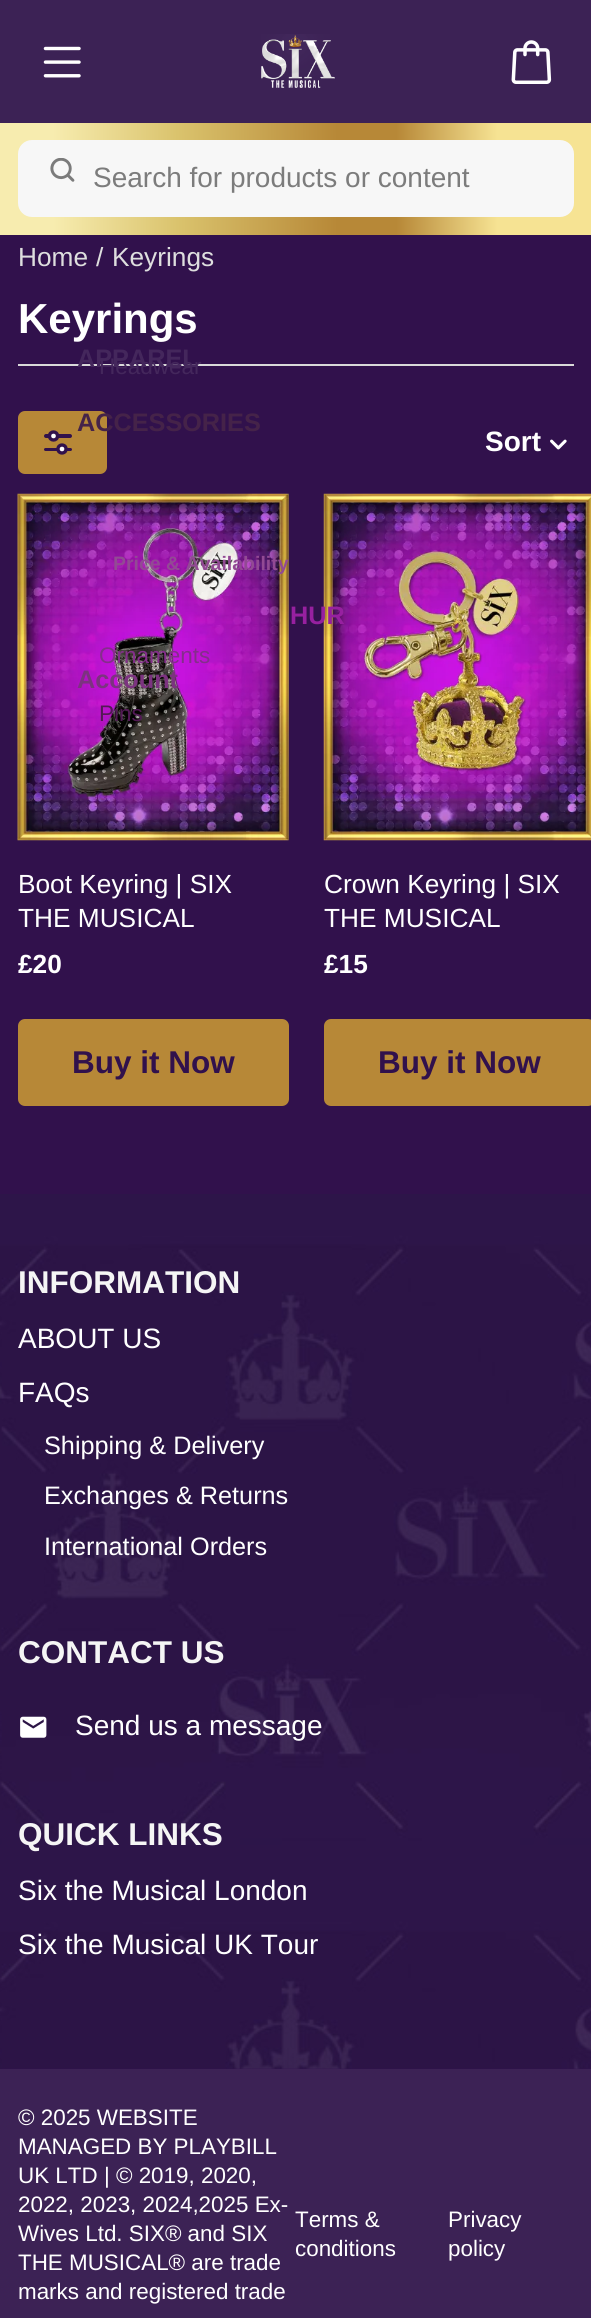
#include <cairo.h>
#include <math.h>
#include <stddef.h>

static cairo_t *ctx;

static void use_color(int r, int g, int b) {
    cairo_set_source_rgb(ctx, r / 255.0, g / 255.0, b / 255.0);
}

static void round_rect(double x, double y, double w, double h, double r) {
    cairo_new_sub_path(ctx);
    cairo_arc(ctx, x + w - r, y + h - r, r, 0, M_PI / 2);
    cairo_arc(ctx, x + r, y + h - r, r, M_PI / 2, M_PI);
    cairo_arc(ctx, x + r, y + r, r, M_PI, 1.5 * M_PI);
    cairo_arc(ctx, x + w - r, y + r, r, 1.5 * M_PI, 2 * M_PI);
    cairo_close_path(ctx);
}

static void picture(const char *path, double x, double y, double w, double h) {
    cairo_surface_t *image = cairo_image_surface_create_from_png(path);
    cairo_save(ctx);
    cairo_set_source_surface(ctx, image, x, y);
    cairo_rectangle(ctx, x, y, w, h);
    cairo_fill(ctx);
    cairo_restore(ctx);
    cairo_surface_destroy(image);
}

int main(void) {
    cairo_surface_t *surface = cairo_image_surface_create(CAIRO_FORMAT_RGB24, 591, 2318);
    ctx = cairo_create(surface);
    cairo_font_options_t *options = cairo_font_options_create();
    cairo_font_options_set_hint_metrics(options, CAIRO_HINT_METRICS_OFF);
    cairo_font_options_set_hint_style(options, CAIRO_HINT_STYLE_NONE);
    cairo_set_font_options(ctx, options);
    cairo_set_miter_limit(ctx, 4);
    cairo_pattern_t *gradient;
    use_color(49, 17, 76);
    cairo_paint(ctx);
    use_color(60, 34, 85);
    cairo_rectangle(ctx, 0, 0, 591, 123);
    cairo_fill(ctx);
    picture("img1.png", 43, 46, 38, 32);
    picture("img2.png", 261, 34, 74, 54);
    picture("img3.png", 511, 40, 41, 44);
    gradient = cairo_pattern_create_linear(0, 179, 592, 178);
    cairo_pattern_add_color_stop_rgba(gradient, 0.09, 0.969, 0.925, 0.686, 1);
    cairo_pattern_add_color_stop_rgba(gradient, 0.3, 0.855, 0.765, 0.427, 1);
    cairo_pattern_add_color_stop_rgba(gradient, 0.57, 0.718, 0.533, 0.216, 1);
    cairo_pattern_add_color_stop_rgba(gradient, 0.67, 0.718, 0.533, 0.216, 1);
    cairo_pattern_add_color_stop_rgba(gradient, 0.84, 0.965, 0.89, 0.576, 1);
    cairo_set_source(ctx, gradient);
    cairo_pattern_destroy(gradient);
    cairo_rectangle(ctx, 0, 123, 591, 112);
    cairo_fill(ctx);
    use_color(247, 247, 247);
    round_rect(18, 140, 556, 77, 14);
    cairo_fill(ctx);
    picture("img4.png", 50, 158, 25, 24);
    cairo_select_font_face(ctx, "Liberation Sans", CAIRO_FONT_SLANT_NORMAL, CAIRO_FONT_WEIGHT_NORMAL);
    cairo_set_font_size(ctx, 28);
    use_color(124, 124, 124);
    cairo_move_to(ctx, 93, 187);
    cairo_show_text(ctx, "Search for products or content");
    use_color(217, 217, 217);
    cairo_rectangle(ctx, 18, 364, 556, 2);
    cairo_fill(ctx);
    cairo_select_font_face(ctx, "Liberation Sans", CAIRO_FONT_SLANT_NORMAL, CAIRO_FONT_WEIGHT_BOLD);
    cairo_set_font_size(ctx, 25.25);
    use_color(68, 39, 92);
    cairo_move_to(ctx, 77, 367);
    cairo_show_text(ctx, "APPAREL");
    cairo_select_font_face(ctx, "Liberation Sans", CAIRO_FONT_SLANT_NORMAL, CAIRO_FONT_WEIGHT_NORMAL);
    cairo_set_font_size(ctx, 22.5);
    cairo_move_to(ctx, 99, 374);
    cairo_show_text(ctx, "Headwear");
    use_color(183, 136, 55);
    round_rect(18, 411, 89, 63, 7);
    cairo_fill(ctx);
    cairo_select_font_face(ctx, "Liberation Sans", CAIRO_FONT_SLANT_NORMAL, CAIRO_FONT_WEIGHT_BOLD);
    cairo_set_font_size(ctx, 25.25);
    use_color(69, 35, 73);
    cairo_move_to(ctx, 77, 431);
    cairo_show_text(ctx, "ACCESSORIES");
    picture("img6.png", 17, 493, 272, 348);
    cairo_select_font_face(ctx, "Liberation Sans", CAIRO_FONT_SLANT_NORMAL, CAIRO_FONT_WEIGHT_NORMAL);
    cairo_set_font_size(ctx, 22.5);
    use_color(132, 46, 139);
    cairo_move_to(ctx, 99, 663);
    cairo_show_text(ctx, "Ornaments");
    use_color(82, 25, 85);
    cairo_move_to(ctx, 99, 721);
    cairo_show_text(ctx, "Pins");
    picture("img7.png", 323, 493, 268, 348);
    cairo_select_font_face(ctx, "Liberation Sans", CAIRO_FONT_SLANT_NORMAL, CAIRO_FONT_WEIGHT_BOLD);
    cairo_set_font_size(ctx, 25.25);
    use_color(151, 32, 160);
    cairo_move_to(ctx, 290, 624);
    cairo_show_text(ctx, "HUR");
    use_color(124, 51, 128);
    cairo_move_to(ctx, 77, 688);
    cairo_show_text(ctx, "Account");
    cairo_select_font_face(ctx, "Liberation Sans", CAIRO_FONT_SLANT_NORMAL, CAIRO_FONT_WEIGHT_NORMAL);
    cairo_set_font_size(ctx, 26.25);
    use_color(222, 222, 222);
    cairo_move_to(ctx, 18, 266);
    cairo_show_text(ctx, "Home");
    cairo_move_to(ctx, 96, 266);
    cairo_show_text(ctx, "/");
    cairo_move_to(ctx, 112, 266);
    cairo_show_text(ctx, "Keyrings");
    cairo_select_font_face(ctx, "Liberation Sans", CAIRO_FONT_SLANT_NORMAL, CAIRO_FONT_WEIGHT_BOLD);
    cairo_set_font_size(ctx, 42);
    use_color(255, 255, 255);
    cairo_move_to(ctx, 18, 333);
    cairo_show_text(ctx, "Keyrings");
    use_color(49, 17, 76);
    round_rect(44, 434, 28, 4, 2);
    cairo_fill(ctx);
    round_rect(44, 448, 28, 3, 1.5);
    cairo_fill(ctx);
    use_color(255, 255, 255);
    cairo_arc(ctx, 53.5, 436, 4, 0, 2 * M_PI);
    cairo_fill_preserve(ctx);
    use_color(49, 17, 76);
    cairo_set_line_width(ctx, 3.4);
    cairo_stroke(ctx);
    use_color(255, 255, 255);
    cairo_arc(ctx, 62, 449, 4, 0, 2 * M_PI);
    cairo_fill_preserve(ctx);
    use_color(49, 17, 76);
    cairo_stroke(ctx);
    cairo_set_font_size(ctx, 28);
    use_color(255, 255, 255);
    cairo_move_to(ctx, 485, 451);
    cairo_show_text(ctx, "Sort");
    picture("img5.png", 550, 439, 17, 11);
    cairo_select_font_face(ctx, "Liberation Sans", CAIRO_FONT_SLANT_NORMAL, CAIRO_FONT_WEIGHT_NORMAL);
    cairo_set_font_size(ctx, 26.25);
    cairo_move_to(ctx, 18, 893);
    cairo_show_text(ctx, "Boot Keyring | SIX");
    cairo_move_to(ctx, 18, 927);
    cairo_show_text(ctx, "THE MUSICAL");
    cairo_select_font_face(ctx, "Liberation Sans", CAIRO_FONT_SLANT_NORMAL, CAIRO_FONT_WEIGHT_BOLD);
    cairo_move_to(ctx, 18, 973);
    cairo_show_text(ctx, "£20");
    use_color(183, 136, 55);
    round_rect(18, 1019, 271, 87, 7);
    cairo_fill(ctx);
    cairo_set_font_size(ctx, 31.5);
    use_color(49, 17, 76);
    cairo_move_to(ctx, 72, 1073);
    cairo_show_text(ctx, "Buy it Now");
    cairo_select_font_face(ctx, "Liberation Sans", CAIRO_FONT_SLANT_NORMAL, CAIRO_FONT_WEIGHT_NORMAL);
    cairo_set_font_size(ctx, 26.25);
    use_color(255, 255, 255);
    cairo_move_to(ctx, 324, 893);
    cairo_show_text(ctx, "Crown Keyring | SIX");
    cairo_move_to(ctx, 324, 927);
    cairo_show_text(ctx, "THE MUSICAL");
    cairo_select_font_face(ctx, "Liberation Sans", CAIRO_FONT_SLANT_NORMAL, CAIRO_FONT_WEIGHT_BOLD);
    cairo_move_to(ctx, 324, 973);
    cairo_show_text(ctx, "£15");
    use_color(183, 136, 55);
    round_rect(324, 1019, 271, 87, 7);
    cairo_fill(ctx);
    cairo_set_font_size(ctx, 31.5);
    use_color(49, 17, 76);
    cairo_move_to(ctx, 378, 1073);
    cairo_show_text(ctx, "Buy it Now");
    cairo_set_font_size(ctx, 19.5);
    use_color(146, 74, 148);
    cairo_move_to(ctx, 113, 570);
    cairo_show_text(ctx, "Price & Availability");
    picture("img8.png", 0, 1194, 591, 875);
    cairo_set_font_size(ctx, 31.5);
    use_color(245, 245, 245);
    cairo_move_to(ctx, 18, 1293);
    cairo_show_text(ctx, "INFORMATION");
    cairo_select_font_face(ctx, "Liberation Sans", CAIRO_FONT_SLANT_NORMAL, CAIRO_FONT_WEIGHT_NORMAL);
    cairo_set_font_size(ctx, 28);
    use_color(255, 255, 255);
    cairo_move_to(ctx, 18, 1348);
    cairo_show_text(ctx, "ABOUT US");
    cairo_move_to(ctx, 18, 1402);
    cairo_show_text(ctx, "FAQs");
    cairo_set_font_size(ctx, 25.25);
    cairo_move_to(ctx, 44, 1454);
    cairo_show_text(ctx, "Shipping & Delivery");
    cairo_move_to(ctx, 44, 1504);
    cairo_show_text(ctx, "Exchanges & Returns");
    cairo_move_to(ctx, 44, 1555);
    cairo_show_text(ctx, "International Orders");
    cairo_select_font_face(ctx, "Liberation Sans", CAIRO_FONT_SLANT_NORMAL, CAIRO_FONT_WEIGHT_BOLD);
    cairo_set_font_size(ctx, 31.5);
    use_color(245, 245, 245);
    cairo_move_to(ctx, 18, 1663);
    cairo_show_text(ctx, "CONTACT US");
    picture("img9.png", 20, 1716, 27, 22);
    cairo_select_font_face(ctx, "Liberation Sans", CAIRO_FONT_SLANT_NORMAL, CAIRO_FONT_WEIGHT_NORMAL);
    cairo_set_font_size(ctx, 28);
    use_color(255, 255, 255);
    cairo_move_to(ctx, 75, 1735);
    cairo_show_text(ctx, "Send us a message");
    cairo_select_font_face(ctx, "Liberation Sans", CAIRO_FONT_SLANT_NORMAL, CAIRO_FONT_WEIGHT_BOLD);
    cairo_set_font_size(ctx, 31.5);
    use_color(245, 245, 245);
    cairo_move_to(ctx, 18, 1845);
    cairo_show_text(ctx, "QUICK LINKS");
    cairo_select_font_face(ctx, "Liberation Sans", CAIRO_FONT_SLANT_NORMAL, CAIRO_FONT_WEIGHT_NORMAL);
    cairo_set_font_size(ctx, 28);
    use_color(255, 255, 255);
    cairo_move_to(ctx, 18, 1900);
    cairo_show_text(ctx, "Six the Musical London");
    cairo_move_to(ctx, 18, 1954);
    cairo_show_text(ctx, "Six the Musical UK Tour");
    use_color(60, 34, 85);
    cairo_rectangle(ctx, 0, 2069, 591, 249);
    cairo_fill(ctx);
    cairo_set_font_size(ctx, 22.4);
    use_color(255, 255, 255);
    cairo_move_to(ctx, 18, 2125);
    cairo_show_text(ctx, "© 2025 WEBSITE");
    cairo_move_to(ctx, 18, 2154);
    cairo_show_text(ctx, "MANAGED BY PLAYBILL");
    cairo_move_to(ctx, 18, 2183);
    cairo_show_text(ctx, "UK LTD | © 2019, 2020,");
    cairo_move_to(ctx, 18, 2212);
    cairo_show_text(ctx, "2022, 2023, 2024,2025 Ex-");
    cairo_move_to(ctx, 18, 2241);
    cairo_show_text(ctx, "Wives Ltd. SIX® and SIX");
    cairo_move_to(ctx, 18, 2270);
    cairo_show_text(ctx, "THE MUSICAL® are trade");
    cairo_move_to(ctx, 18, 2299);
    cairo_show_text(ctx, "marks and registered trade");
    cairo_move_to(ctx, 295, 2227);
    cairo_show_text(ctx, "Terms &");
    cairo_move_to(ctx, 295, 2256);
    cairo_show_text(ctx, "conditions");
    cairo_move_to(ctx, 448, 2227);
    cairo_show_text(ctx, "Privacy");
    cairo_move_to(ctx, 448, 2256);
    cairo_show_text(ctx, "policy");
    cairo_surface_write_to_png(surface, "result.png");
    cairo_font_options_destroy(options);
    cairo_destroy(ctx);
    cairo_surface_destroy(surface);
    return 0;
}
